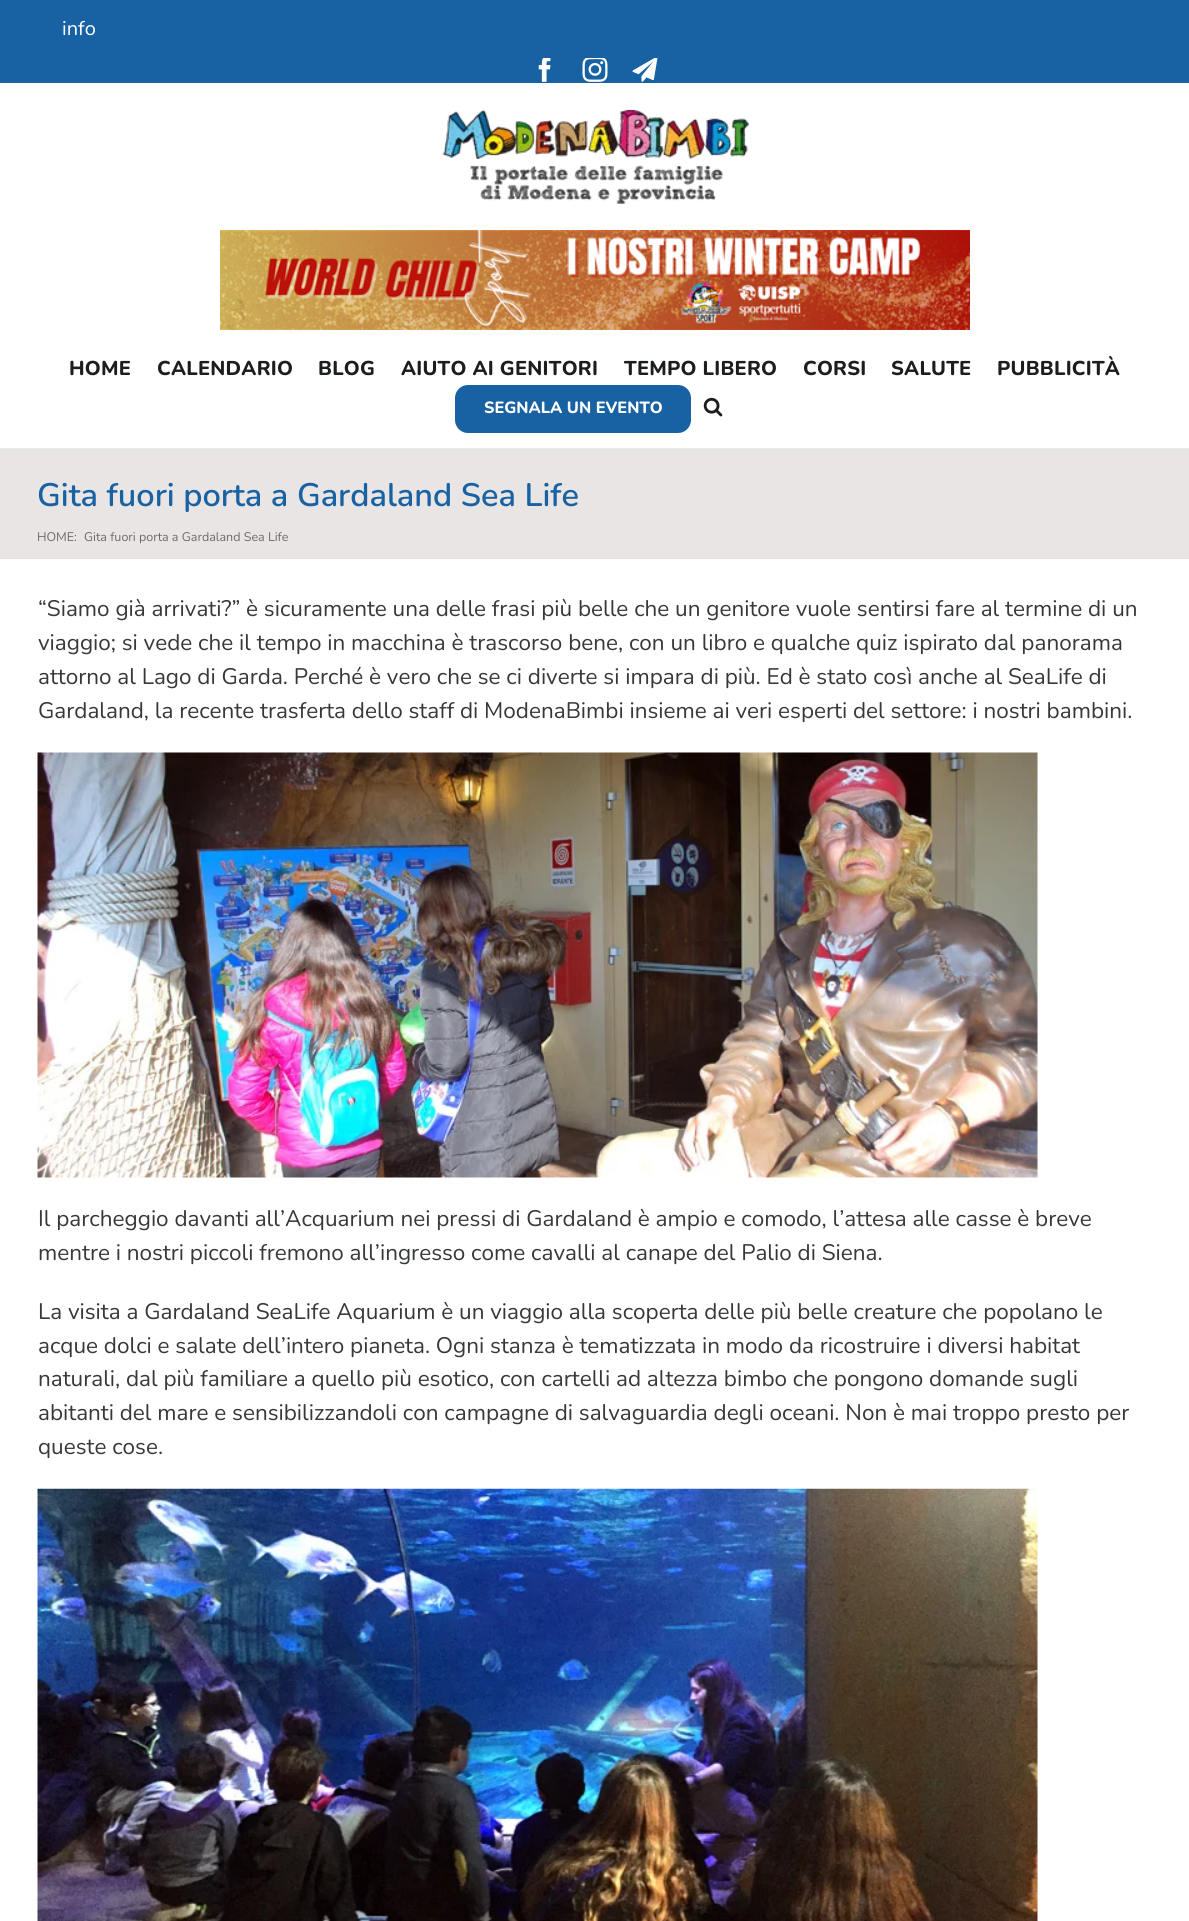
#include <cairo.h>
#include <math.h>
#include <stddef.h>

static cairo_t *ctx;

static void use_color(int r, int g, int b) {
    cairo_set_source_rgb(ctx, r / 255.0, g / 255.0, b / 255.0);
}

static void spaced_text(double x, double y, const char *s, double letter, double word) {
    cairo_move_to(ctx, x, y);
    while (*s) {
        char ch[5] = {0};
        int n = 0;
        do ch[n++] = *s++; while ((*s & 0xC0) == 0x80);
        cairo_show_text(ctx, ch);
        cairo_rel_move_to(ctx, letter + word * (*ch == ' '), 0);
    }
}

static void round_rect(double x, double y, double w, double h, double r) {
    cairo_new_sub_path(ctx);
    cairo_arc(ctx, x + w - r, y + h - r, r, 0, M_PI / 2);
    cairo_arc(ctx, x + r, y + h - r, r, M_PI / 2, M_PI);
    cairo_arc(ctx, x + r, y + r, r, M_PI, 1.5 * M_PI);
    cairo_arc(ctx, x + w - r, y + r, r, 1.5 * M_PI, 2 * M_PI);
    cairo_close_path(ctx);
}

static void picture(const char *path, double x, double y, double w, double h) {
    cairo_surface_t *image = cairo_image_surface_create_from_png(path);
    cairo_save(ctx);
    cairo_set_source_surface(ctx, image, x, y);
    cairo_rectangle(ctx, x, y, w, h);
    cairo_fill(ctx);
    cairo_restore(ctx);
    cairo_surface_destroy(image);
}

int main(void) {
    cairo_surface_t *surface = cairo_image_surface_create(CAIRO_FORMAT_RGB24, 1189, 1921);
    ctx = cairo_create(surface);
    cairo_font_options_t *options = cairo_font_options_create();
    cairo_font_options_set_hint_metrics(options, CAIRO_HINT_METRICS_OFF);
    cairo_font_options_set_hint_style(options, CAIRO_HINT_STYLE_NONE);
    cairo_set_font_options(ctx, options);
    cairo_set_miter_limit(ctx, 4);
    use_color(255, 255, 255);
    cairo_paint(ctx);
    use_color(24, 98, 163);
    cairo_rectangle(ctx, 0, 0, 1189, 83);
    cairo_fill(ctx);
    cairo_select_font_face(ctx, "Nunito", CAIRO_FONT_SLANT_NORMAL, CAIRO_FONT_WEIGHT_NORMAL);
    cairo_set_font_size(ctx, 20);
    use_color(255, 255, 255);
    cairo_move_to(ctx, 62, 35);
    cairo_show_text(ctx, "info");
    picture("img1.png", 538, 58, 13, 24);
    picture("img2.png", 582, 58, 26, 24);
    picture("img3.png", 632, 58, 26, 24);
    use_color(232, 237, 240);
    cairo_rectangle(ctx, 0, 448, 1189, 1);
    cairo_fill(ctx);
    picture("img4.png", 442, 109, 307, 95);
    picture("img5.png", 220, 230, 750, 100);
    cairo_select_font_face(ctx, "Nunito ExtraBold", CAIRO_FONT_SLANT_NORMAL, CAIRO_FONT_WEIGHT_NORMAL);
    use_color(27, 29, 30);
    spaced_text(69, 375, "HOME", 0.25, 0);
    spaced_text(157, 375, "CALENDARIO", 0.25, 0);
    spaced_text(318, 375, "BLOG", 0.25, 0);
    spaced_text(401, 375, "AIUTO AI GENITORI", 0.25, 0);
    spaced_text(624, 375, "TEMPO LIBERO", 0.25, 0);
    spaced_text(803, 375, "CORSI", 0.25, 0);
    spaced_text(891, 375, "SALUTE", 0.25, 0);
    spaced_text(997, 375, "PUBBLICITÀ", 0.25, 0);
    use_color(24, 98, 163);
    round_rect(455, 385, 236, 48, 13);
    cairo_fill(ctx);
    cairo_set_font_size(ctx, 16.25);
    use_color(255, 255, 255);
    cairo_move_to(ctx, 484, 413);
    cairo_show_text(ctx, "SEGNALA UN EVENTO");
    picture("img6.png", 703, 397, 20, 20);
    use_color(234, 229, 229);
    cairo_rectangle(ctx, 0, 449, 1189, 110);
    cairo_fill(ctx);
    cairo_select_font_face(ctx, "Nunito SemiBold", CAIRO_FONT_SLANT_NORMAL, CAIRO_FONT_WEIGHT_NORMAL);
    cairo_set_font_size(ctx, 32.5);
    use_color(24, 98, 163);
    cairo_move_to(ctx, 37, 506);
    cairo_show_text(ctx, "Gita fuori porta a Gardaland Sea Life");
    cairo_select_font_face(ctx, "Nunito", CAIRO_FONT_SLANT_NORMAL, CAIRO_FONT_WEIGHT_NORMAL);
    cairo_set_font_size(ctx, 12.5);
    use_color(107, 107, 107);
    cairo_move_to(ctx, 37, 541);
    cairo_show_text(ctx, "HOME:");
    cairo_move_to(ctx, 84, 541);
    cairo_show_text(ctx, "Gita fuori porta a Gardaland Sea Life");
    cairo_set_font_size(ctx, 22.5);
    use_color(54, 56, 57);
    cairo_move_to(ctx, 38, 616);
    cairo_show_text(ctx, "“Siamo già arrivati?” è sicuramente una delle frasi più belle che un genitore vuole sentirsi fare al termine di un");
    cairo_move_to(ctx, 38, 650);
    cairo_show_text(ctx, "viaggio; si vede che il tempo in macchina è trascorso bene, con un libro e qualche quiz ispirato dal panorama");
    cairo_move_to(ctx, 38, 684);
    cairo_show_text(ctx, "attorno al Lago di Garda. Perché è vero che se ci diverte si impara di più. Ed è stato così anche al SeaLife di");
    cairo_move_to(ctx, 38, 718);
    cairo_show_text(ctx, "Gardaland, la recente trasferta dello staff di ModenaBimbi insieme ai veri esperti del settore: i nostri bambini.");
    picture("img7.png", 37, 752, 1001, 426);
    cairo_move_to(ctx, 38, 1226);
    cairo_show_text(ctx, "Il parcheggio davanti all’Acquarium nei pressi di Gardaland è ampio e comodo, l’attesa alle casse è breve");
    cairo_move_to(ctx, 38, 1260);
    cairo_show_text(ctx, "mentre i nostri piccoli fremono all’ingresso come cavalli al canape del Palio di Siena.");
    cairo_move_to(ctx, 38, 1319);
    cairo_show_text(ctx, "La visita a Gardaland SeaLife Aquarium è un viaggio alla scoperta delle più belle creature che popolano le");
    cairo_move_to(ctx, 38, 1353);
    cairo_show_text(ctx, "acque dolci e salate dell’intero pianeta. Ogni stanza è tematizzata in modo da ricostruire i diversi habitat");
    cairo_move_to(ctx, 38, 1386);
    cairo_show_text(ctx, "naturali, dal più familiare a quello più esotico, con cartelli ad altezza bimbo che pongono domande sugli");
    cairo_move_to(ctx, 38, 1420);
    cairo_show_text(ctx, "abitanti del mare e sensibilizzandoli con campagne di salvaguardia degli oceani. Non è mai troppo presto per");
    cairo_move_to(ctx, 38, 1454);
    cairo_show_text(ctx, "queste cose.");
    picture("img8.png", 37, 1488, 1001, 433);
    cairo_surface_write_to_png(surface, "result.png");
    cairo_font_options_destroy(options);
    cairo_destroy(ctx);
    cairo_surface_destroy(surface);
    return 0;
}
